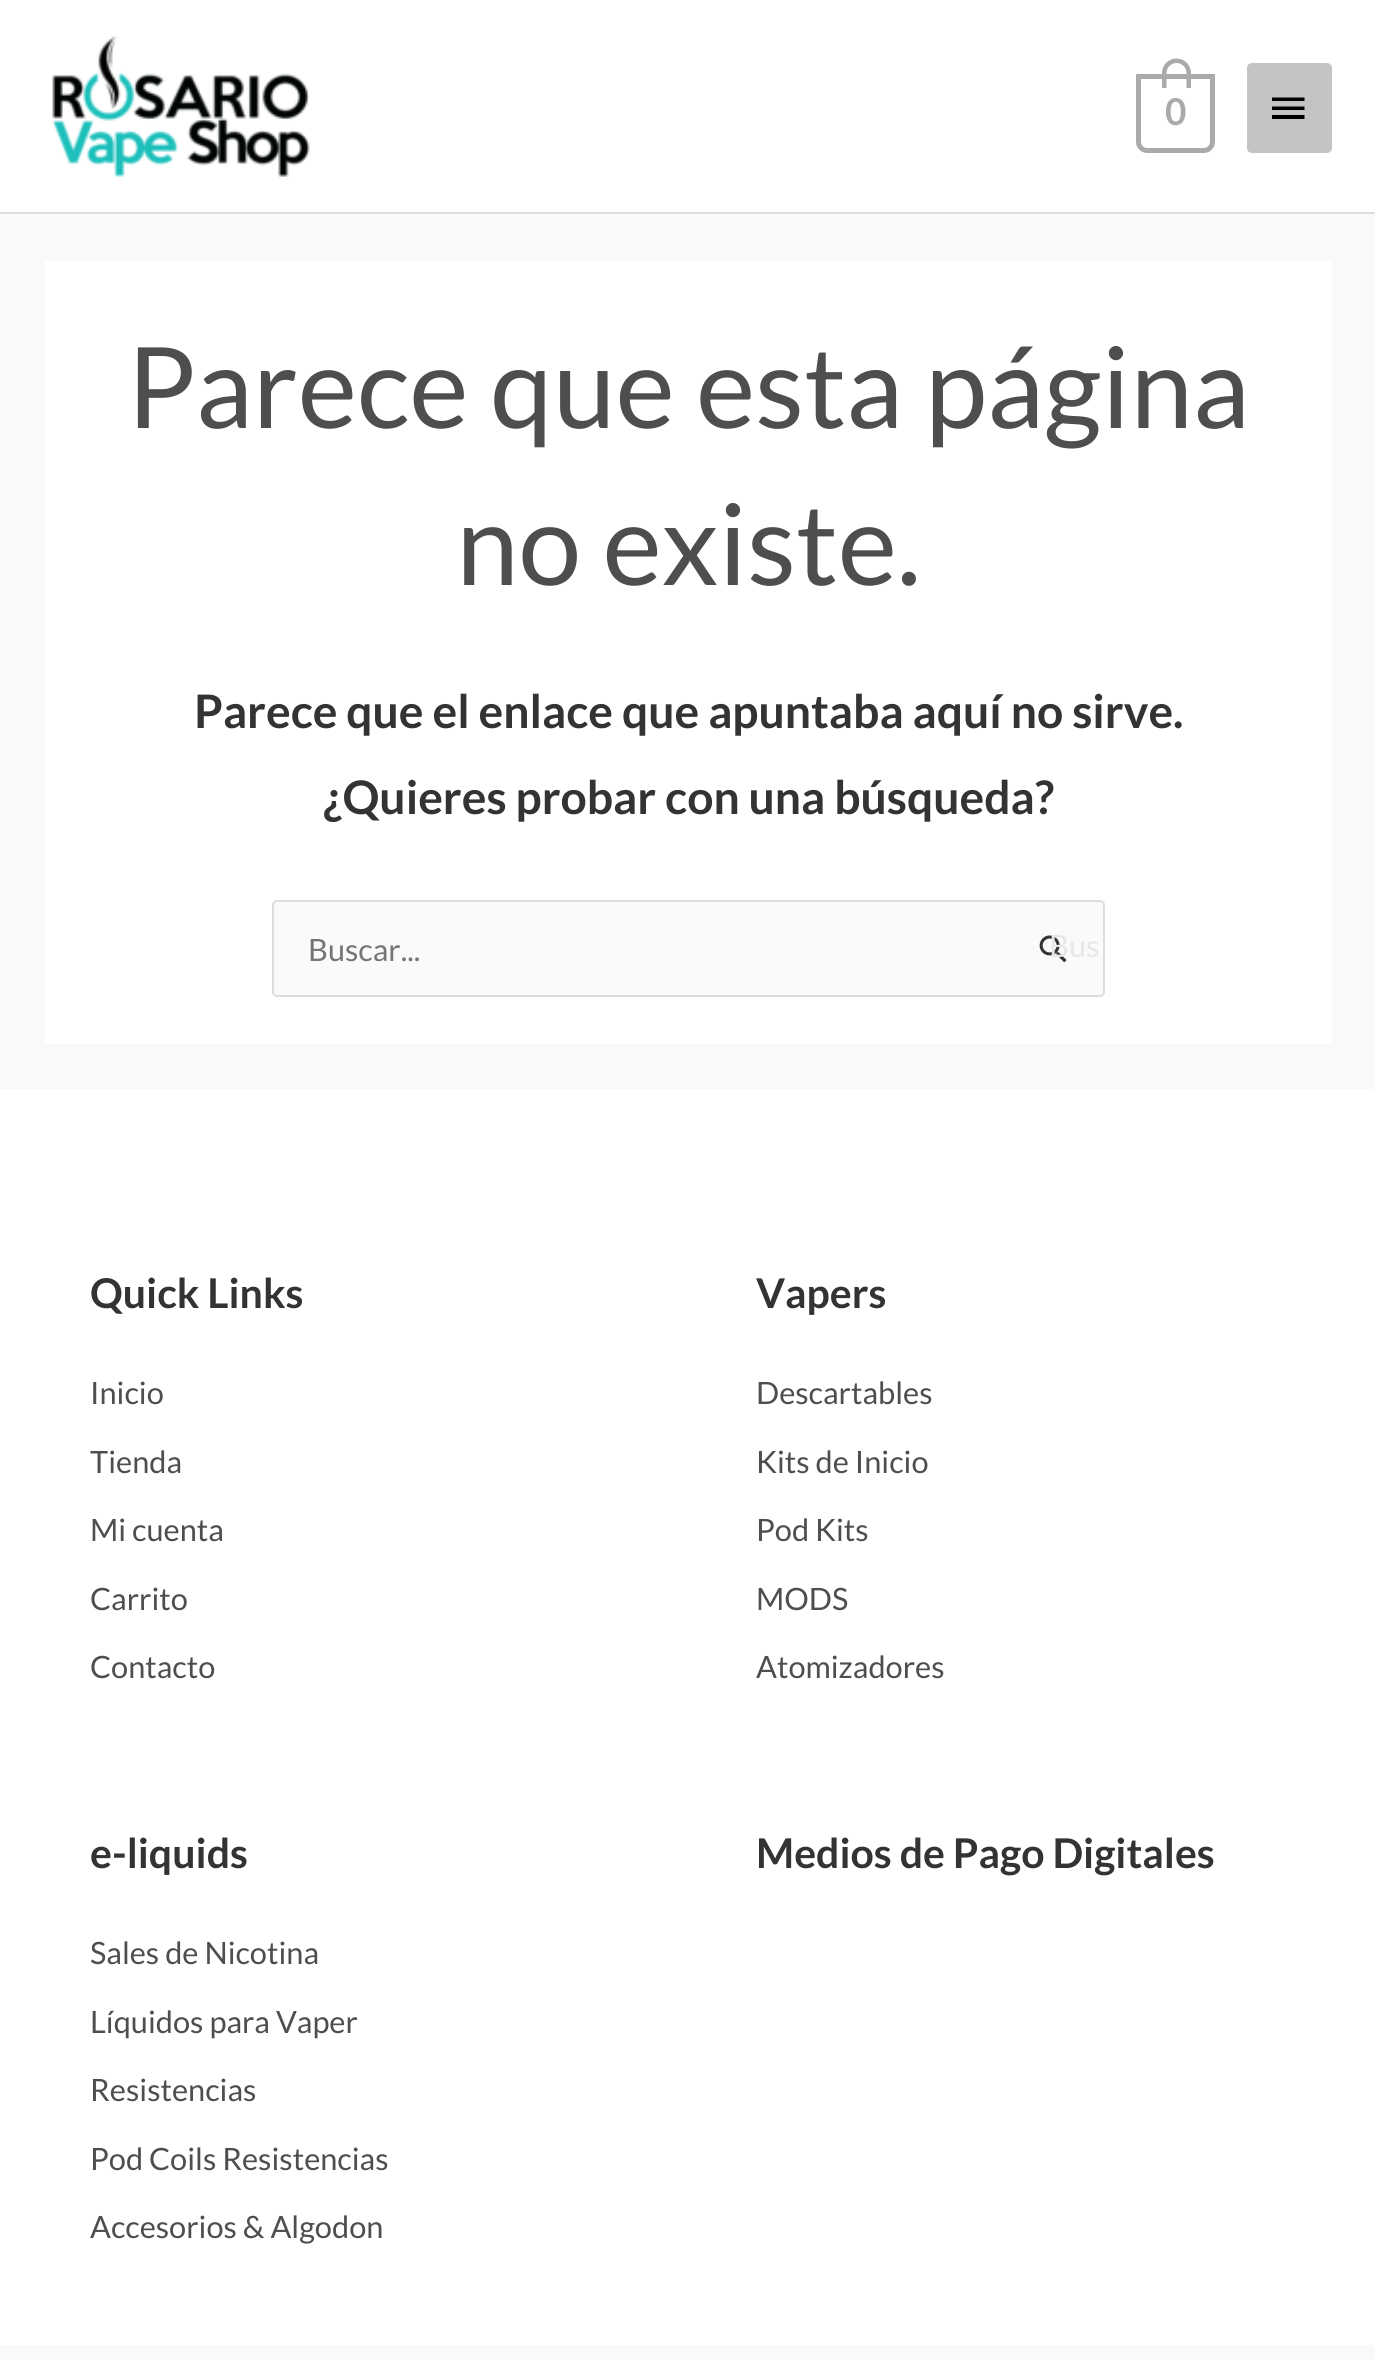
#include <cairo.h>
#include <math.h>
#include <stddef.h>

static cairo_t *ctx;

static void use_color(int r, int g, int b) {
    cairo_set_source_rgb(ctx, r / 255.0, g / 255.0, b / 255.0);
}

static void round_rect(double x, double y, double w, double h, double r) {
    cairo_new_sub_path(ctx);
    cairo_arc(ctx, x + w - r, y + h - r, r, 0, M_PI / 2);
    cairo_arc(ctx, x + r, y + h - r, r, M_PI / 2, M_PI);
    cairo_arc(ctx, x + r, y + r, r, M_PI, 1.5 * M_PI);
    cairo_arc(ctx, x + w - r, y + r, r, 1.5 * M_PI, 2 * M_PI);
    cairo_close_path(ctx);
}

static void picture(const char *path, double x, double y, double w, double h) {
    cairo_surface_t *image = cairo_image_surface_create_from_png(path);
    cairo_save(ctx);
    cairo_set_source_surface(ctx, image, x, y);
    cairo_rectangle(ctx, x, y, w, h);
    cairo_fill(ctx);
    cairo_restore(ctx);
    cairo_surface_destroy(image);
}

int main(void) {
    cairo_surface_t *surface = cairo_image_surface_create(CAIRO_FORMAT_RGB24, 1375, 2360);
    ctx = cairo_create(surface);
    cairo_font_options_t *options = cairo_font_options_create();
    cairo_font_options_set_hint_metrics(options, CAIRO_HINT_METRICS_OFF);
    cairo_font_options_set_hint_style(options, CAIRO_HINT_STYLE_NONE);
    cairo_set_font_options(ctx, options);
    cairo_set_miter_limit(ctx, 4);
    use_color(249, 249, 249);
    cairo_paint(ctx);
    use_color(255, 255, 255);
    cairo_rectangle(ctx, 0, 0, 1375, 212);
    cairo_fill(ctx);
    use_color(221, 221, 221);
    cairo_rectangle(ctx, 0, 212, 1375, 2);
    cairo_fill(ctx);
    picture("img1.png", 52, 35, 258, 142);
    cairo_new_path(ctx);
    cairo_move_to(ctx, 1138.5, 76.5);
    cairo_line_to(ctx, 1212.5, 76.5);
    cairo_line_to(ctx, 1212.5, 142);
    cairo_curve_to(ctx, 1212.5, 146.5, 1208.5, 150.5, 1204, 150.5);
    cairo_line_to(ctx, 1147, 150.5);
    cairo_curve_to(ctx, 1142.5, 150.5, 1138.5, 146.5, 1138.5, 142);
    cairo_close_path(ctx);
    use_color(170, 170, 170);
    cairo_set_line_width(ctx, 5);
    cairo_stroke(ctx);
    cairo_set_fill_rule(ctx, CAIRO_FILL_RULE_EVEN_ODD);
    cairo_new_path(ctx);
    cairo_move_to(ctx, 1176.5, 58.5);
    cairo_curve_to(ctx, 1184.5, 58.5, 1191, 65, 1191, 73);
    cairo_line_to(ctx, 1191, 88);
    cairo_line_to(ctx, 1162, 88);
    cairo_line_to(ctx, 1162, 73);
    cairo_curve_to(ctx, 1162, 65, 1168.5, 58.5, 1176.5, 58.5);
    cairo_close_path(ctx);
    cairo_move_to(ctx, 1176.5, 63);
    cairo_curve_to(ctx, 1182, 63, 1186.5, 67.5, 1186.5, 73);
    cairo_line_to(ctx, 1186.5, 88);
    cairo_line_to(ctx, 1166.5, 88);
    cairo_line_to(ctx, 1166.5, 73);
    cairo_curve_to(ctx, 1166.5, 67.5, 1171, 63, 1176.5, 63);
    cairo_close_path(ctx);
    cairo_fill(ctx);
    cairo_select_font_face(ctx, "Lato", CAIRO_FONT_SLANT_NORMAL, CAIRO_FONT_WEIGHT_BOLD);
    cairo_set_font_size(ctx, 37);
    cairo_move_to(ctx, 1165, 125);
    cairo_show_text(ctx, "0");
    use_color(196, 196, 196);
    round_rect(1247, 63, 85, 90, 5);
    cairo_fill(ctx);
    use_color(0, 0, 0);
    cairo_set_fill_rule(ctx, CAIRO_FILL_RULE_WINDING);
    cairo_new_path(ctx);
    cairo_move_to(ctx, 1272, 97.5);
    cairo_line_to(ctx, 1304.5, 97.5);
    cairo_line_to(ctx, 1304.5, 101);
    cairo_line_to(ctx, 1272, 101);
    cairo_close_path(ctx);
    cairo_move_to(ctx, 1272, 110);
    cairo_line_to(ctx, 1272, 106.5);
    cairo_line_to(ctx, 1304.5, 106.5);
    cairo_line_to(ctx, 1304.5, 110);
    cairo_close_path(ctx);
    cairo_move_to(ctx, 1272, 119);
    cairo_line_to(ctx, 1272, 115);
    cairo_line_to(ctx, 1304.5, 115);
    cairo_line_to(ctx, 1304.5, 119);
    cairo_close_path(ctx);
    cairo_fill(ctx);
    use_color(255, 255, 255);
    cairo_rectangle(ctx, 45, 261, 1287, 783);
    cairo_fill(ctx);
    cairo_select_font_face(ctx, "Lato", CAIRO_FONT_SLANT_NORMAL, CAIRO_FONT_WEIGHT_NORMAL);
    cairo_set_font_size(ctx, 112.5);
    use_color(78, 78, 78);
    cairo_move_to(ctx, 127, 428);
    cairo_show_text(ctx, "Parece que esta página");
    cairo_move_to(ctx, 456, 585);
    cairo_show_text(ctx, "no existe.");
    cairo_select_font_face(ctx, "Lato", CAIRO_FONT_SLANT_NORMAL, CAIRO_FONT_WEIGHT_BOLD);
    cairo_set_font_size(ctx, 46.2);
    use_color(51, 51, 51);
    cairo_move_to(ctx, 194, 728);
    cairo_show_text(ctx, "Parece que el enlace que apuntaba aquí no sirve.");
    cairo_move_to(ctx, 323, 814);
    cairo_show_text(ctx, "¿Quieres probar con una búsqueda?");
    use_color(250, 250, 250);
    round_rect(273, 901, 831, 95, 4);
    cairo_fill_preserve(ctx);
    use_color(221, 221, 221);
    cairo_set_line_width(ctx, 2);
    cairo_stroke(ctx);
    picture("img2.png", 1039, 935, 28, 28);
    cairo_select_font_face(ctx, "Lato", CAIRO_FONT_SLANT_NORMAL, CAIRO_FONT_WEIGHT_NORMAL);
    cairo_set_font_size(ctx, 30.75);
    use_color(231, 231, 231);
    cairo_move_to(ctx, 1049, 957);
    cairo_show_text(ctx, "Bus");
    use_color(117, 117, 117);
    cairo_move_to(ctx, 308, 961);
    cairo_show_text(ctx, "Buscar...");
    use_color(255, 255, 255);
    cairo_rectangle(ctx, 0, 1089, 1375, 1256);
    cairo_fill(ctx);
    cairo_select_font_face(ctx, "Lato", CAIRO_FONT_SLANT_NORMAL, CAIRO_FONT_WEIGHT_BOLD);
    cairo_set_font_size(ctx, 41);
    use_color(51, 51, 51);
    cairo_move_to(ctx, 90, 1308);
    cairo_show_text(ctx, "Quick Links");
    cairo_select_font_face(ctx, "Lato", CAIRO_FONT_SLANT_NORMAL, CAIRO_FONT_WEIGHT_NORMAL);
    cairo_set_font_size(ctx, 30.75);
    use_color(78, 78, 78);
    cairo_move_to(ctx, 90, 1404);
    cairo_show_text(ctx, "Inicio");
    cairo_move_to(ctx, 90, 1473);
    cairo_show_text(ctx, "Tienda");
    cairo_move_to(ctx, 90, 1541);
    cairo_show_text(ctx, "Mi cuenta");
    cairo_move_to(ctx, 90, 1610);
    cairo_show_text(ctx, "Carrito");
    cairo_move_to(ctx, 90, 1678);
    cairo_show_text(ctx, "Contacto");
    cairo_select_font_face(ctx, "Lato", CAIRO_FONT_SLANT_NORMAL, CAIRO_FONT_WEIGHT_BOLD);
    cairo_set_font_size(ctx, 41);
    use_color(51, 51, 51);
    cairo_move_to(ctx, 756, 1308);
    cairo_show_text(ctx, "Vapers");
    cairo_select_font_face(ctx, "Lato", CAIRO_FONT_SLANT_NORMAL, CAIRO_FONT_WEIGHT_NORMAL);
    cairo_set_font_size(ctx, 30.75);
    use_color(78, 78, 78);
    cairo_move_to(ctx, 756, 1404);
    cairo_show_text(ctx, "Descartables");
    cairo_move_to(ctx, 756, 1473);
    cairo_show_text(ctx, "Kits de Inicio");
    cairo_move_to(ctx, 756, 1541);
    cairo_show_text(ctx, "Pod Kits");
    cairo_move_to(ctx, 756, 1610);
    cairo_show_text(ctx, "MODS");
    cairo_move_to(ctx, 756, 1678);
    cairo_show_text(ctx, "Atomizadores");
    cairo_select_font_face(ctx, "Lato", CAIRO_FONT_SLANT_NORMAL, CAIRO_FONT_WEIGHT_BOLD);
    cairo_set_font_size(ctx, 41);
    use_color(51, 51, 51);
    cairo_move_to(ctx, 90, 1868);
    cairo_show_text(ctx, "e-liquids");
    cairo_select_font_face(ctx, "Lato", CAIRO_FONT_SLANT_NORMAL, CAIRO_FONT_WEIGHT_NORMAL);
    cairo_set_font_size(ctx, 30.75);
    use_color(78, 78, 78);
    cairo_move_to(ctx, 90, 1964);
    cairo_show_text(ctx, "Sales de Nicotina");
    cairo_move_to(ctx, 90, 2033);
    cairo_show_text(ctx, "Líquidos para Vaper");
    cairo_move_to(ctx, 90, 2101);
    cairo_show_text(ctx, "Resistencias");
    cairo_move_to(ctx, 90, 2170);
    cairo_show_text(ctx, "Pod Coils Resistencias");
    cairo_move_to(ctx, 90, 2238);
    cairo_show_text(ctx, "Accesorios & Algodon");
    cairo_select_font_face(ctx, "Lato", CAIRO_FONT_SLANT_NORMAL, CAIRO_FONT_WEIGHT_BOLD);
    cairo_set_font_size(ctx, 41);
    use_color(51, 51, 51);
    cairo_move_to(ctx, 756, 1868);
    cairo_show_text(ctx, "Medios de Pago Digitales");
    cairo_surface_write_to_png(surface, "result.png");
    cairo_font_options_destroy(options);
    cairo_destroy(ctx);
    cairo_surface_destroy(surface);
    return 0;
}
